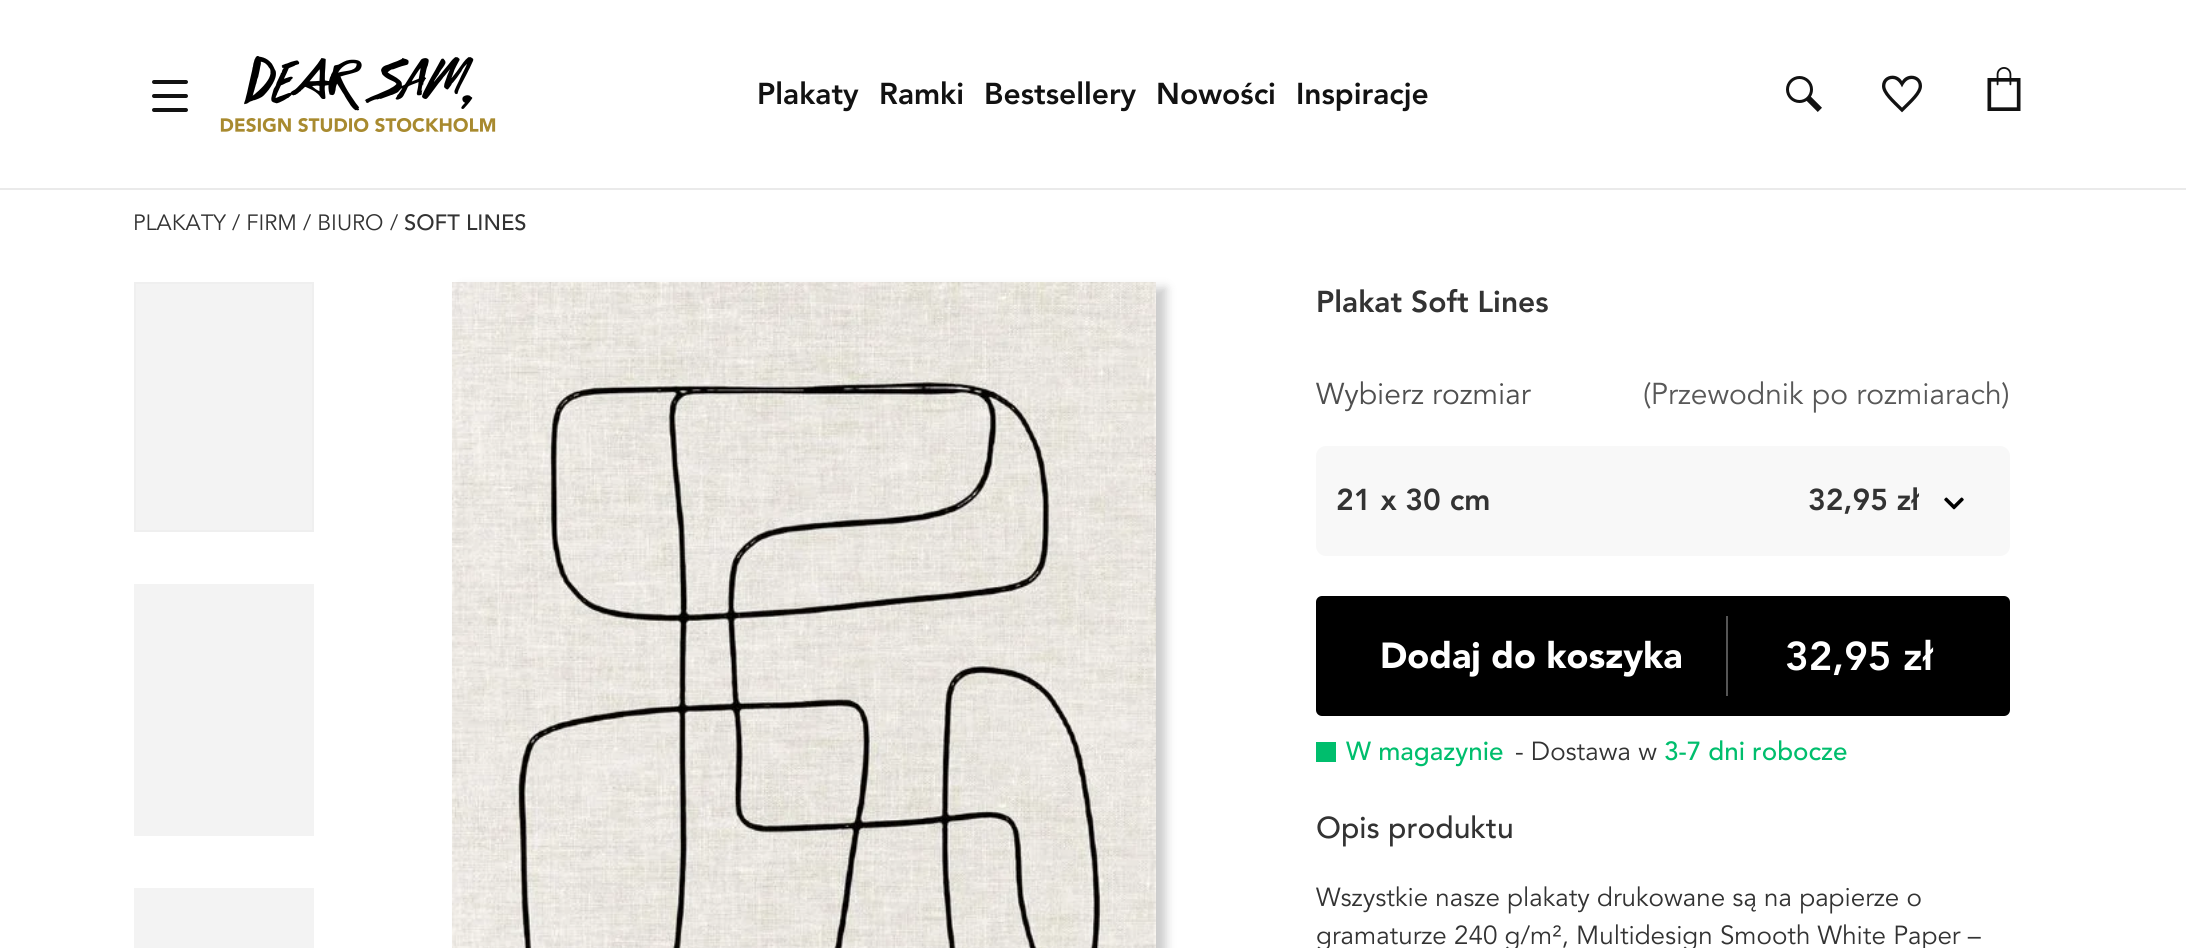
#include <cairo.h>
#include <math.h>
#include <stddef.h>

static cairo_t *ctx;

static void use_color(int r, int g, int b) {
    cairo_set_source_rgb(ctx, r / 255.0, g / 255.0, b / 255.0);
}

static void round_rect(double x, double y, double w, double h, double r) {
    cairo_new_sub_path(ctx);
    cairo_arc(ctx, x + w - r, y + h - r, r, 0, M_PI / 2);
    cairo_arc(ctx, x + r, y + h - r, r, M_PI / 2, M_PI);
    cairo_arc(ctx, x + r, y + r, r, M_PI, 1.5 * M_PI);
    cairo_arc(ctx, x + w - r, y + r, r, 1.5 * M_PI, 2 * M_PI);
    cairo_close_path(ctx);
}

static void shadow(double x, double y, double w, double h, double r, double blur, double alpha) {
    cairo_push_group_with_content(ctx, CAIRO_CONTENT_ALPHA);
    cairo_set_operator(ctx, CAIRO_OPERATOR_SOURCE);
    for (int i = 15; i >= -15 && fmin(w, h) + blur * i / 3 > 0; i -= 2) {
        double e = blur * i / 6;
        cairo_set_source_rgba(ctx, 0, 0, 0, alpha * erfc((i - 1) / 8.5) / 2);
        round_rect(x - e, y - e, w + 2 * e, h + 2 * e, fmax(0, fmin(r + e + blur * .6, fmin(w, h) / 2 + e)));
        cairo_fill(ctx);
    }
    cairo_pattern_t *soft = cairo_pop_group(ctx);
    cairo_mask(ctx, soft);
    cairo_pattern_destroy(soft);
}

static void picture(const char *path, double x, double y, double w, double h) {
    cairo_surface_t *image = cairo_image_surface_create_from_png(path);
    cairo_save(ctx);
    cairo_set_source_surface(ctx, image, x, y);
    cairo_rectangle(ctx, x, y, w, h);
    cairo_fill(ctx);
    cairo_restore(ctx);
    cairo_surface_destroy(image);
}

int main(void) {
    cairo_surface_t *surface = cairo_image_surface_create(CAIRO_FORMAT_RGB24, 2186, 948);
    ctx = cairo_create(surface);
    cairo_font_options_t *options = cairo_font_options_create();
    cairo_font_options_set_hint_metrics(options, CAIRO_HINT_METRICS_OFF);
    cairo_font_options_set_hint_style(options, CAIRO_HINT_STYLE_NONE);
    cairo_set_font_options(ctx, options);
    cairo_set_miter_limit(ctx, 4);
    use_color(255, 255, 255);
    cairo_paint(ctx);
    use_color(234, 234, 234);
    cairo_rectangle(ctx, 0, 188, 2186, 2);
    cairo_fill(ctx);
    use_color(18, 18, 18);
    round_rect(152, 80, 36, 4, 2);
    cairo_fill(ctx);
    round_rect(152, 94, 36, 4, 2);
    cairo_fill(ctx);
    round_rect(152, 108, 36, 4, 2);
    cairo_fill(ctx);
    picture("img1.png", 220, 56, 276, 76);
    cairo_select_font_face(ctx, "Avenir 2 Black", CAIRO_FONT_SLANT_NORMAL, CAIRO_FONT_WEIGHT_NORMAL);
    cairo_set_font_size(ctx, 30);
    cairo_move_to(ctx, 757, 104);
    cairo_show_text(ctx, "Plakaty");
    cairo_move_to(ctx, 879, 104);
    cairo_show_text(ctx, "Ramki");
    cairo_move_to(ctx, 984, 104);
    cairo_show_text(ctx, "Bestsellery");
    cairo_move_to(ctx, 1156, 104);
    cairo_show_text(ctx, "Nowości");
    cairo_move_to(ctx, 1296, 104);
    cairo_show_text(ctx, "Inspiracje");
    picture("img2.png", 1786, 76, 36, 36);
    picture("img3.png", 1882, 75, 40, 38);
    picture("img4.png", 1987, 67, 34, 44);
    cairo_select_font_face(ctx, "Avenir", CAIRO_FONT_SLANT_NORMAL, CAIRO_FONT_WEIGHT_NORMAL);
    cairo_set_font_size(ctx, 22);
    use_color(51, 51, 51);
    cairo_move_to(ctx, 133, 230);
    cairo_show_text(ctx, "PLAKATY");
    cairo_move_to(ctx, 232, 230);
    cairo_show_text(ctx, "/ FIRM");
    cairo_move_to(ctx, 303, 230);
    cairo_show_text(ctx, "/ BIURO");
    cairo_move_to(ctx, 390, 230);
    cairo_show_text(ctx, "/");
    cairo_select_font_face(ctx, "Avenir Medium", CAIRO_FONT_SLANT_NORMAL, CAIRO_FONT_WEIGHT_NORMAL);
    cairo_move_to(ctx, 404, 230);
    cairo_show_text(ctx, "SOFT LINES");
    cairo_rectangle(ctx, 135, 283, 178, 248);
    use_color(239, 239, 239);
    cairo_stroke(ctx);
    use_color(243, 243, 243);
    cairo_rectangle(ctx, 136, 284, 176, 246);
    cairo_fill(ctx);
    cairo_rectangle(ctx, 134, 584, 180, 252);
    cairo_fill(ctx);
    cairo_rectangle(ctx, 134, 888, 180, 60);
    cairo_fill(ctx);
    use_color(0, 0, 0);
    shadow(462, 288, 704, 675, 0, 5, 0.2);
    picture("img5.png", 452, 282, 704, 666);
    cairo_select_font_face(ctx, "Avenir 2 Black", CAIRO_FONT_SLANT_NORMAL, CAIRO_FONT_WEIGHT_NORMAL);
    cairo_set_font_size(ctx, 30);
    use_color(51, 51, 51);
    cairo_move_to(ctx, 1316, 312);
    cairo_show_text(ctx, "Plakat Soft Lines");
    cairo_select_font_face(ctx, "Avenir", CAIRO_FONT_SLANT_NORMAL, CAIRO_FONT_WEIGHT_NORMAL);
    use_color(79, 79, 79);
    cairo_move_to(ctx, 1316, 404);
    cairo_show_text(ctx, "Wybierz rozmiar");
    use_color(88, 88, 88);
    cairo_move_to(ctx, 1643, 404);
    cairo_show_text(ctx, "(Przewodnik po rozmiarach)");
    use_color(248, 248, 248);
    round_rect(1316, 446, 694, 110, 10);
    cairo_fill(ctx);
    cairo_select_font_face(ctx, "Avenir 2 Black", CAIRO_FONT_SLANT_NORMAL, CAIRO_FONT_WEIGHT_NORMAL);
    use_color(51, 51, 51);
    cairo_move_to(ctx, 1336, 510);
    cairo_show_text(ctx, "21 x 30 cm");
    cairo_move_to(ctx, 1808, 510);
    cairo_show_text(ctx, "32,95 zł");
    picture("img6.png", 1944, 497, 20, 13);
    use_color(0, 0, 0);
    round_rect(1316, 596, 694, 120, 6);
    cairo_fill(ctx);
    cairo_select_font_face(ctx, "Avenir Black", CAIRO_FONT_SLANT_NORMAL, CAIRO_FONT_WEIGHT_NORMAL);
    cairo_set_font_size(ctx, 36);
    use_color(255, 255, 255);
    cairo_move_to(ctx, 1380, 668);
    cairo_show_text(ctx, "Dodaj do koszyka");
    use_color(85, 85, 85);
    cairo_rectangle(ctx, 1726, 616, 2, 80);
    cairo_fill(ctx);
    cairo_select_font_face(ctx, "Avenir 2 Black", CAIRO_FONT_SLANT_NORMAL, CAIRO_FONT_WEIGHT_NORMAL);
    cairo_set_font_size(ctx, 40);
    use_color(255, 255, 255);
    cairo_move_to(ctx, 1785, 670);
    cairo_show_text(ctx, "32,95 zł");
    use_color(0, 190, 109);
    cairo_rectangle(ctx, 1316, 742, 20, 20);
    cairo_fill(ctx);
    cairo_select_font_face(ctx, "Avenir Medium", CAIRO_FONT_SLANT_NORMAL, CAIRO_FONT_WEIGHT_NORMAL);
    cairo_set_font_size(ctx, 26);
    cairo_move_to(ctx, 1346, 760);
    cairo_show_text(ctx, "W magazynie");
    cairo_select_font_face(ctx, "Avenir", CAIRO_FONT_SLANT_NORMAL, CAIRO_FONT_WEIGHT_NORMAL);
    use_color(51, 51, 51);
    cairo_move_to(ctx, 1515, 760);
    cairo_show_text(ctx, "- Dostawa w");
    cairo_select_font_face(ctx, "Avenir Medium", CAIRO_FONT_SLANT_NORMAL, CAIRO_FONT_WEIGHT_NORMAL);
    use_color(0, 190, 109);
    cairo_move_to(ctx, 1664, 760);
    cairo_show_text(ctx, "3-7 dni robocze");
    cairo_set_font_size(ctx, 30);
    use_color(51, 51, 51);
    cairo_move_to(ctx, 1316, 838);
    cairo_show_text(ctx, "Opis produktu");
    cairo_select_font_face(ctx, "Avenir", CAIRO_FONT_SLANT_NORMAL, CAIRO_FONT_WEIGHT_NORMAL);
    cairo_set_font_size(ctx, 26);
    cairo_move_to(ctx, 1316, 906);
    cairo_show_text(ctx, "Wszystkie nasze plakaty drukowane są na papierze o");
    cairo_move_to(ctx, 1316, 944);
    cairo_show_text(ctx, "gramaturze 240 g/m², Multidesign Smooth White Paper –");
    cairo_surface_write_to_png(surface, "result.png");
    cairo_font_options_destroy(options);
    cairo_destroy(ctx);
    cairo_surface_destroy(surface);
    return 0;
}
